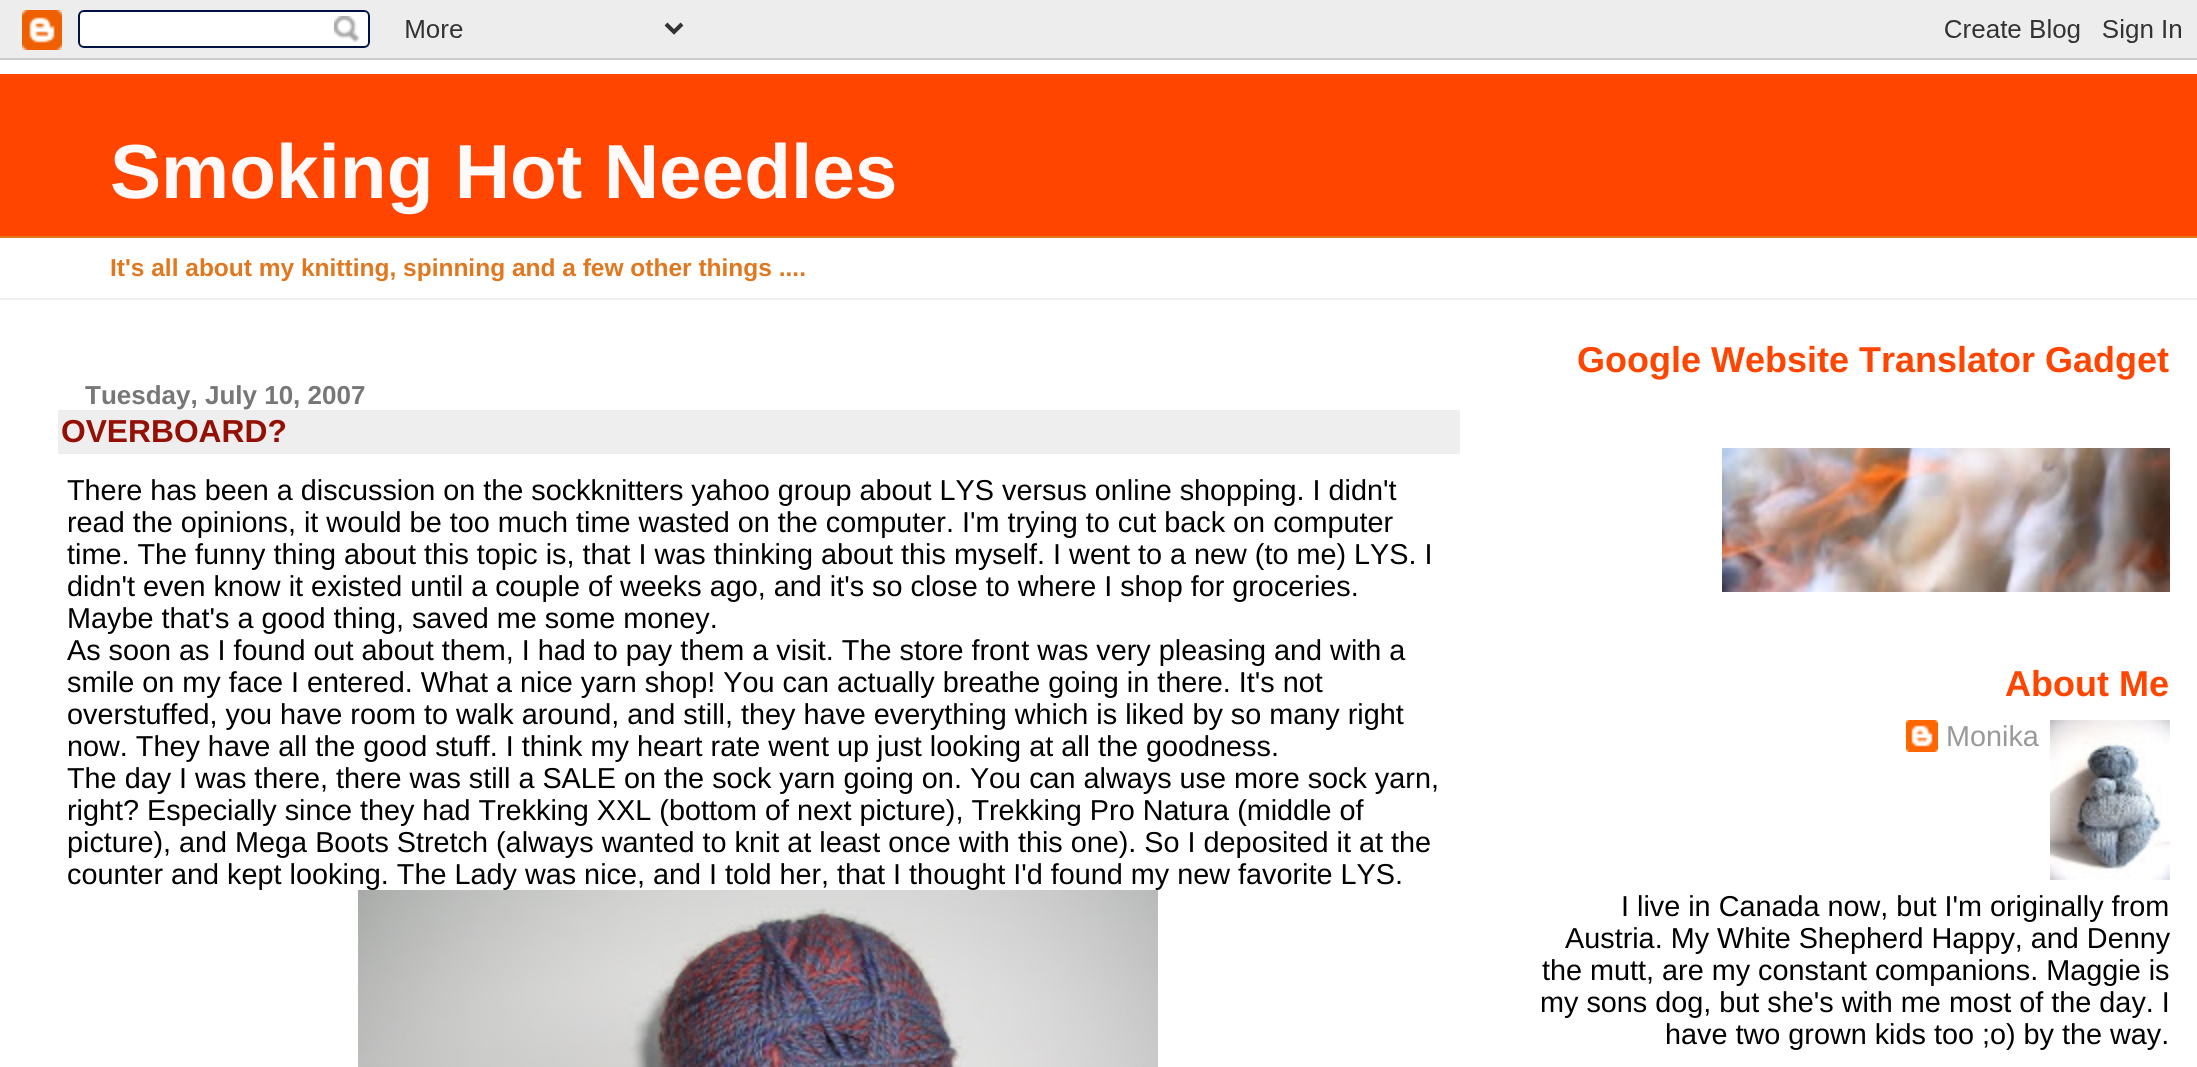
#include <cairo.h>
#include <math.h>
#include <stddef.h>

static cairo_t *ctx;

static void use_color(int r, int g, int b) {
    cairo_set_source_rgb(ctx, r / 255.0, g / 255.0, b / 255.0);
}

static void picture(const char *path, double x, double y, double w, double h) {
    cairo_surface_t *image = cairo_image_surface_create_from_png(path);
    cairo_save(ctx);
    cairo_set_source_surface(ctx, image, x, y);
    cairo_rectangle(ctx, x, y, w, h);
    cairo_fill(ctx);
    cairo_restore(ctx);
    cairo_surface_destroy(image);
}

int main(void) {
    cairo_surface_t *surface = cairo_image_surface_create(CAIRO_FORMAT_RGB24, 2197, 1067);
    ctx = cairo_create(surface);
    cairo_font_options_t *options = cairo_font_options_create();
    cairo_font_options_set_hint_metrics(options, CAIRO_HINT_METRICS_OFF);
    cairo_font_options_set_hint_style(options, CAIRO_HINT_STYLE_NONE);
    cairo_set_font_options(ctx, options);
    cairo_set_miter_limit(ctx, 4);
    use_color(255, 255, 255);
    cairo_paint(ctx);
    picture("img1.png", 0, 0, 2197, 60);
    use_color(238, 238, 238);
    cairo_rectangle(ctx, 0, 298, 2197, 2);
    cairo_fill(ctx);
    use_color(255, 69, 0);
    cairo_rectangle(ctx, 0, 74, 2197, 162);
    cairo_fill(ctx);
    use_color(225, 119, 30);
    cairo_rectangle(ctx, 0, 236, 2197, 2);
    cairo_fill(ctx);
    cairo_select_font_face(ctx, "Liberation Sans", CAIRO_FONT_SLANT_NORMAL, CAIRO_FONT_WEIGHT_BOLD);
    cairo_set_font_size(ctx, 76.6);
    use_color(255, 250, 250);
    cairo_move_to(ctx, 110, 198);
    cairo_show_text(ctx, "Smoking Hot Needles");
    cairo_set_font_size(ctx, 24.5);
    use_color(225, 119, 30);
    cairo_move_to(ctx, 110, 276);
    cairo_show_text(ctx, "It's all about my knitting, spinning and a few other things ....");
    cairo_set_font_size(ctx, 26);
    use_color(119, 119, 119);
    cairo_move_to(ctx, 85, 404);
    cairo_show_text(ctx, "Tuesday, July 10, 2007");
    use_color(238, 238, 238);
    cairo_rectangle(ctx, 58, 410, 1402, 44);
    cairo_fill(ctx);
    cairo_set_font_size(ctx, 31.75);
    use_color(148, 15, 4);
    cairo_move_to(ctx, 61, 442);
    cairo_show_text(ctx, "OVERBOARD?");
    cairo_select_font_face(ctx, "Liberation Sans", CAIRO_FONT_SLANT_NORMAL, CAIRO_FONT_WEIGHT_NORMAL);
    cairo_set_font_size(ctx, 28.8);
    use_color(0, 0, 0);
    cairo_move_to(ctx, 67, 500);
    cairo_show_text(ctx, "There has been a discussion on the sockknitters yahoo group about LYS versus online shopping. I didn't");
    cairo_move_to(ctx, 67, 532);
    cairo_show_text(ctx, "read the opinions, it would be too much time wasted on the computer. I'm trying to cut back on computer");
    cairo_move_to(ctx, 67, 564);
    cairo_show_text(ctx, "time. The funny thing about this topic is, that I was thinking about this myself. I went to a new (to me) LYS. I");
    cairo_move_to(ctx, 67, 596);
    cairo_show_text(ctx, "didn't even know it existed until a couple of weeks ago, and it's so close to where I shop for groceries.");
    cairo_move_to(ctx, 67, 628);
    cairo_show_text(ctx, "Maybe that's a good thing, saved me some money.");
    cairo_move_to(ctx, 67, 660);
    cairo_show_text(ctx, "As soon as I found out about them, I had to pay them a visit. The store front was very pleasing and with a");
    cairo_move_to(ctx, 67, 692);
    cairo_show_text(ctx, "smile on my face I entered. What a nice yarn shop! You can actually breathe going in there. It's not");
    cairo_move_to(ctx, 67, 724);
    cairo_show_text(ctx, "overstuffed, you have room to walk around, and still, they have everything which is liked by so many right");
    cairo_move_to(ctx, 67, 756);
    cairo_show_text(ctx, "now. They have all the good stuff. I think my heart rate went up just looking at all the goodness.");
    cairo_move_to(ctx, 67, 788);
    cairo_show_text(ctx, "The day I was there, there was still a SALE on the sock yarn going on. You can always use more sock yarn,");
    cairo_move_to(ctx, 67, 820);
    cairo_show_text(ctx, "right? Especially since they had Trekking XXL (bottom of next picture), Trekking Pro Natura (middle of");
    cairo_move_to(ctx, 67, 852);
    cairo_show_text(ctx, "picture), and Mega Boots Stretch (always wanted to knit at least once with this one). So I deposited it at the");
    cairo_move_to(ctx, 67, 884);
    cairo_show_text(ctx, "counter and kept looking. The Lady was nice, and I told her, that I thought I'd found my new favorite LYS.");
    picture("img2.png", 358, 890, 800, 177);
    cairo_select_font_face(ctx, "Liberation Sans", CAIRO_FONT_SLANT_NORMAL, CAIRO_FONT_WEIGHT_BOLD);
    cairo_set_font_size(ctx, 36);
    use_color(255, 69, 0);
    cairo_move_to(ctx, 1577, 372);
    cairo_show_text(ctx, "Google Website Translator Gadget");
    picture("img3.png", 1722, 448, 448, 144);
    cairo_move_to(ctx, 2005, 696);
    cairo_show_text(ctx, "About Me");
    picture("img4.png", 2050, 720, 120, 160);
    picture("img5.png", 1906, 720, 32, 32);
    cairo_select_font_face(ctx, "Liberation Sans", CAIRO_FONT_SLANT_NORMAL, CAIRO_FONT_WEIGHT_NORMAL);
    cairo_set_font_size(ctx, 28.8);
    use_color(153, 153, 153);
    cairo_move_to(ctx, 1946, 746);
    cairo_show_text(ctx, "Monika");
    use_color(0, 0, 0);
    cairo_move_to(ctx, 1621, 916);
    cairo_show_text(ctx, "I live in Canada now, but I'm originally from");
    cairo_move_to(ctx, 1565, 948);
    cairo_show_text(ctx, "Austria. My White Shepherd Happy, and Denny");
    cairo_move_to(ctx, 1542, 980);
    cairo_show_text(ctx, "the mutt, are my constant companions. Maggie is");
    cairo_move_to(ctx, 1540, 1012);
    cairo_show_text(ctx, "my sons dog, but she's with me most of the day. I");
    cairo_move_to(ctx, 1665, 1044);
    cairo_show_text(ctx, "have two grown kids too ;o) by the way.");
    cairo_surface_write_to_png(surface, "result.png");
    cairo_font_options_destroy(options);
    cairo_destroy(ctx);
    cairo_surface_destroy(surface);
    return 0;
}
